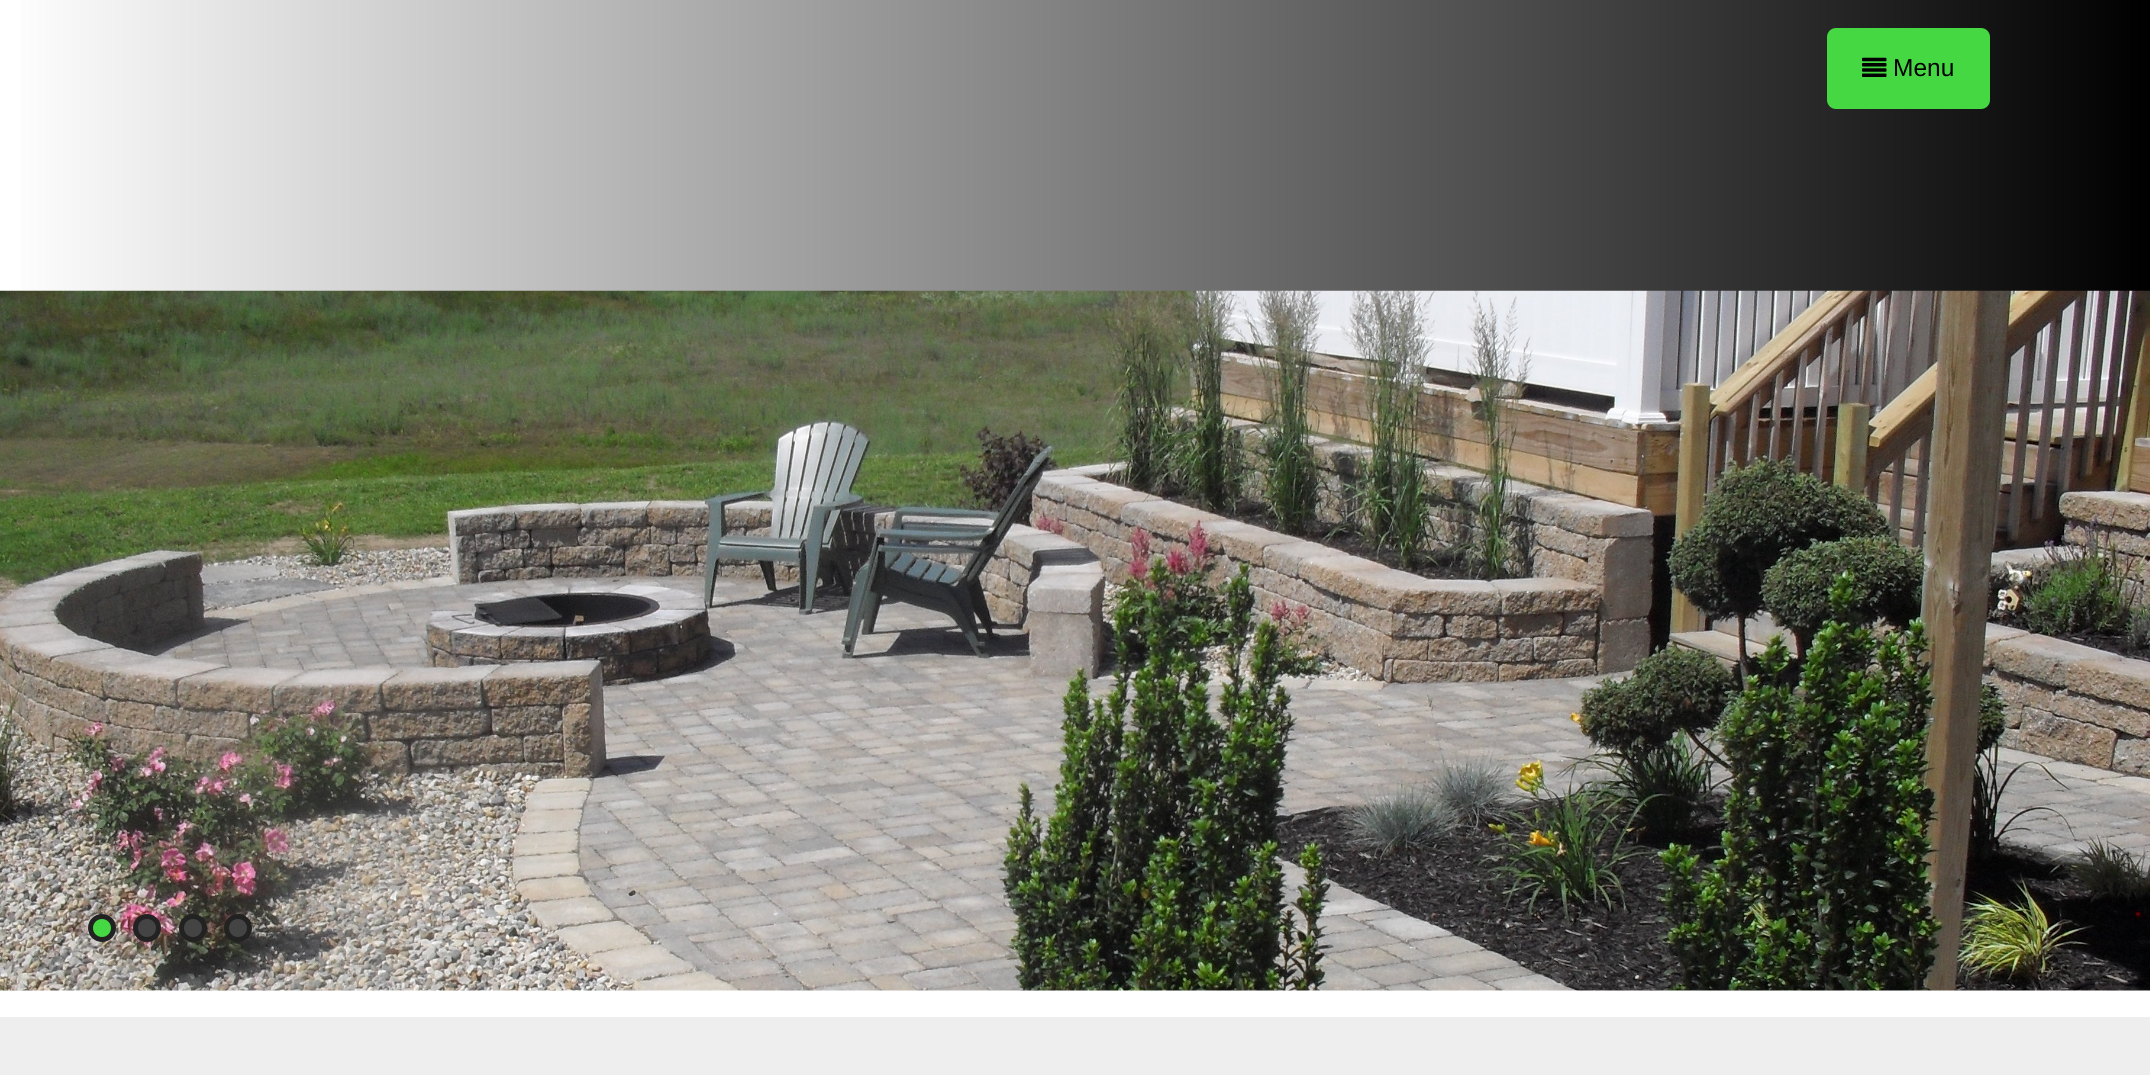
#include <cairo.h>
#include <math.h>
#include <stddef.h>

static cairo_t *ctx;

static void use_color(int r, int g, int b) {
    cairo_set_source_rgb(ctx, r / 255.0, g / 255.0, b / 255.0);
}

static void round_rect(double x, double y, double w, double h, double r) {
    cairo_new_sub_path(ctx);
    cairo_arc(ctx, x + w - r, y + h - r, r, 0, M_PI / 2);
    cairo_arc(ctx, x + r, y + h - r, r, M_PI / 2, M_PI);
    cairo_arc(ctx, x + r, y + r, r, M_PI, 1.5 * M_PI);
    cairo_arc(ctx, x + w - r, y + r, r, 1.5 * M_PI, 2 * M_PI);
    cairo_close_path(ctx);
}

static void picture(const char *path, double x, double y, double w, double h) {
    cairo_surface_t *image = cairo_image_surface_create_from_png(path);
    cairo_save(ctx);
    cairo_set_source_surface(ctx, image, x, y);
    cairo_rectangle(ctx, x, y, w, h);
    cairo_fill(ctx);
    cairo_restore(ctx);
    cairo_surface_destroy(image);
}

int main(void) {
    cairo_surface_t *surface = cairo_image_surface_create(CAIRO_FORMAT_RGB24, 2150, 1075);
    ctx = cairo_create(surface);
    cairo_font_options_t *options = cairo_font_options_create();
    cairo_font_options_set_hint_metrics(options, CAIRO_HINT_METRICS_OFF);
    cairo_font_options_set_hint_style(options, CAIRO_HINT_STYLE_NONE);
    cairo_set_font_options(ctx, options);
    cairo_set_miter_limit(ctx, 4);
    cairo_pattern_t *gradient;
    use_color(255, 255, 255);
    cairo_paint(ctx);
    gradient = cairo_pattern_create_linear(0, 145, 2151, 145);
    cairo_pattern_add_color_stop_rgba(gradient, 0, 1, 1, 1, 1);
    cairo_pattern_add_color_stop_rgba(gradient, 1, 0, 0, 0, 1);
    cairo_set_source(ctx, gradient);
    cairo_pattern_destroy(gradient);
    cairo_rectangle(ctx, 21, 0, 2129, 291);
    cairo_fill(ctx);
    use_color(69, 216, 67);
    round_rect(1827, 28, 163, 81, 9);
    cairo_fill(ctx);
    picture("img1.png", 1862, 57, 25, 20);
    cairo_select_font_face(ctx, "Liberation Sans", CAIRO_FONT_SLANT_NORMAL, CAIRO_FONT_WEIGHT_NORMAL);
    cairo_set_font_size(ctx, 24.5);
    use_color(0, 0, 0);
    cairo_move_to(ctx, 1893, 76);
    cairo_show_text(ctx, "Menu");
    picture("img2.png", 0, 290, 2150, 701);
    use_color(69, 216, 67);
    cairo_arc(ctx, 102, 928, 11.5, 0, 2 * M_PI);
    cairo_fill_preserve(ctx);
    use_color(34, 34, 34);
    cairo_set_line_width(ctx, 5);
    cairo_stroke(ctx);
    use_color(68, 68, 68);
    cairo_arc(ctx, 147, 928, 11.5, 0, 2 * M_PI);
    cairo_fill_preserve(ctx);
    use_color(34, 34, 34);
    cairo_stroke(ctx);
    use_color(68, 68, 68);
    cairo_arc(ctx, 193, 928, 11.5, 0, 2 * M_PI);
    cairo_fill_preserve(ctx);
    use_color(34, 34, 34);
    cairo_stroke(ctx);
    use_color(68, 68, 68);
    cairo_arc(ctx, 238, 928, 11.5, 0, 2 * M_PI);
    cairo_fill_preserve(ctx);
    use_color(34, 34, 34);
    cairo_stroke(ctx);
    use_color(238, 238, 238);
    cairo_rectangle(ctx, 0, 1017, 2150, 58);
    cairo_fill(ctx);
    cairo_surface_write_to_png(surface, "result.png");
    cairo_font_options_destroy(options);
    cairo_destroy(ctx);
    cairo_surface_destroy(surface);
    return 0;
}
